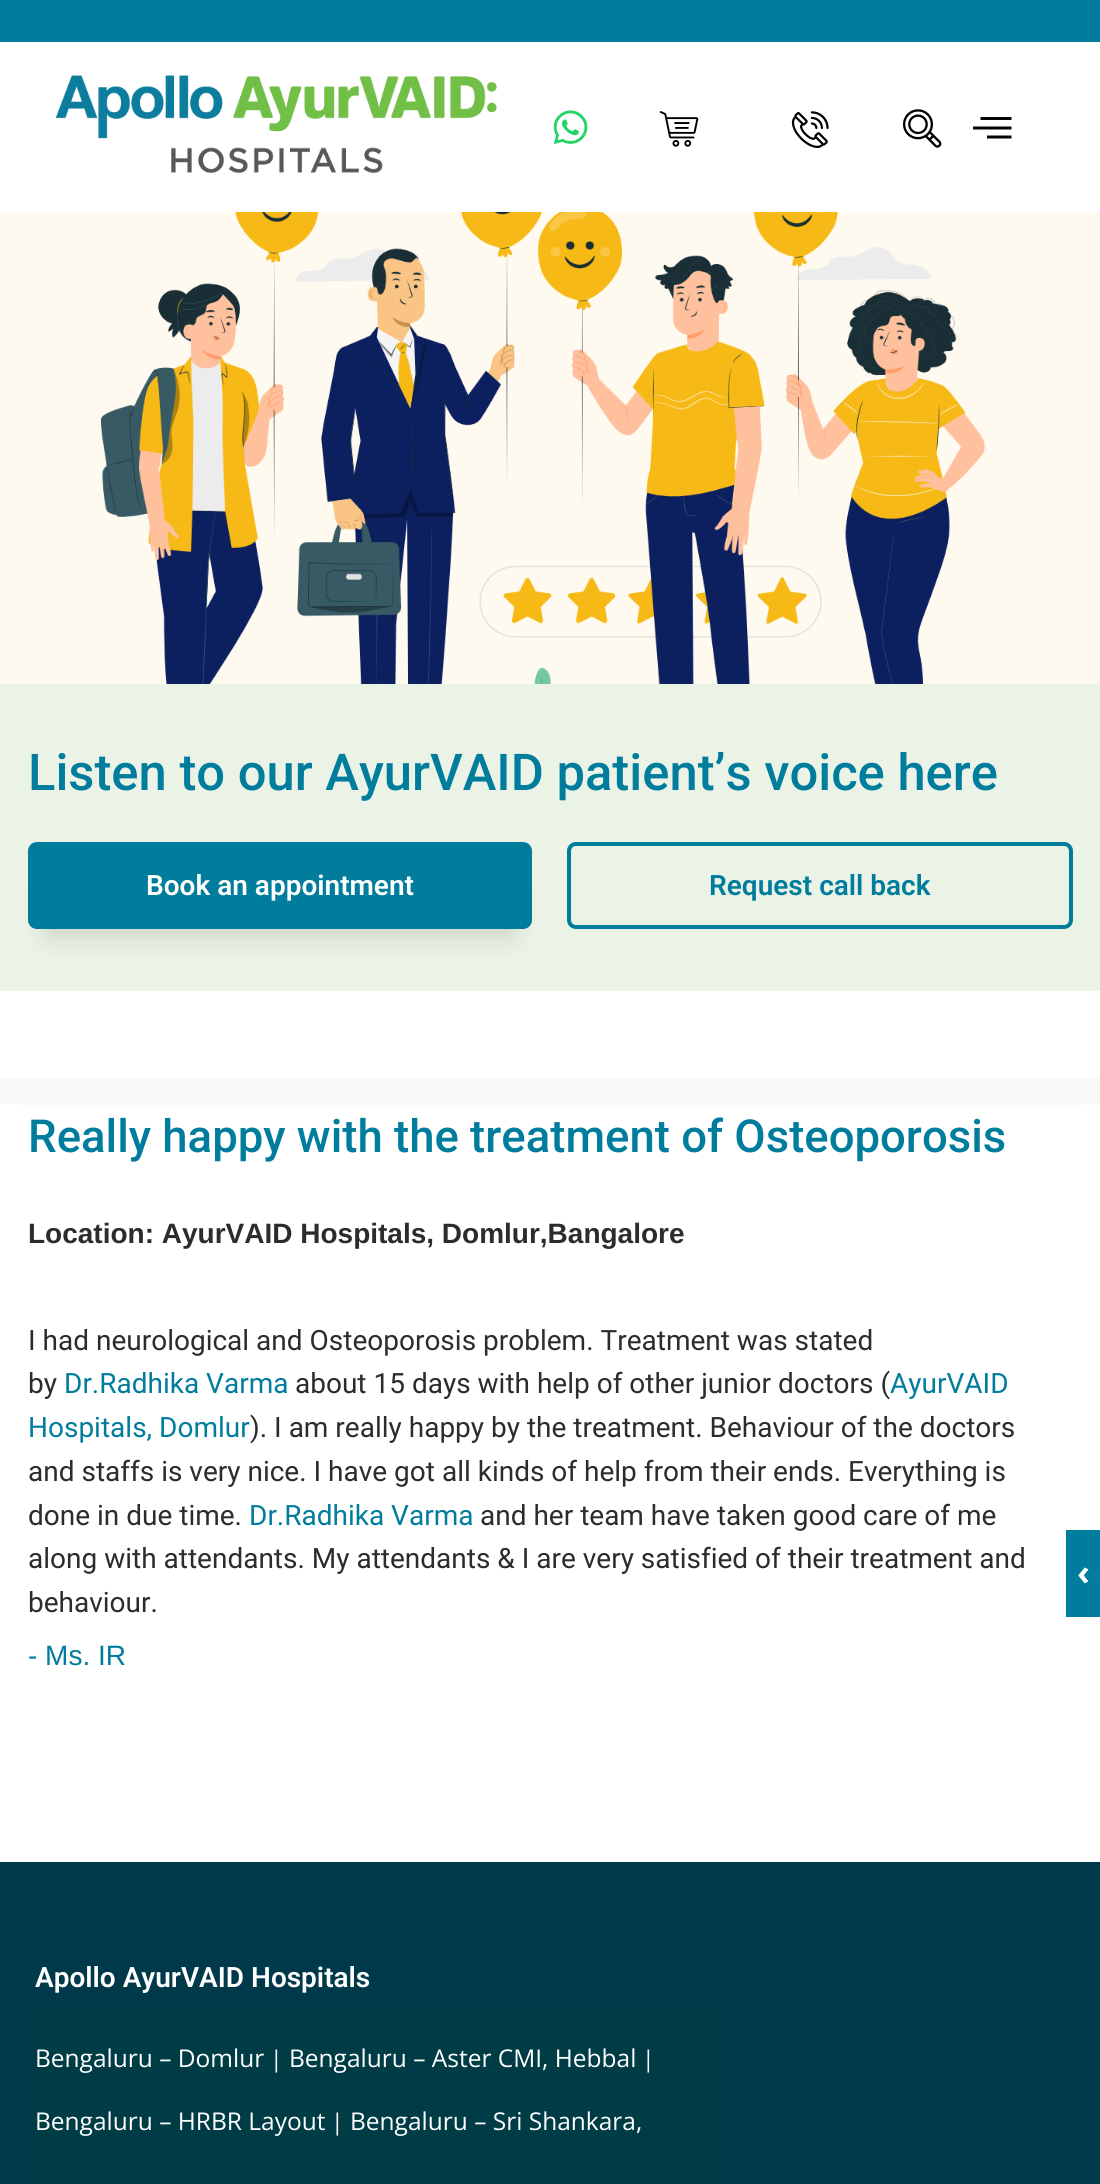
#include <cairo.h>
#include <math.h>
#include <stddef.h>

static cairo_t *ctx;

static void use_color(int r, int g, int b) {
    cairo_set_source_rgb(ctx, r / 255.0, g / 255.0, b / 255.0);
}

static void round_rect(double x, double y, double w, double h, double r) {
    cairo_new_sub_path(ctx);
    cairo_arc(ctx, x + w - r, y + h - r, r, 0, M_PI / 2);
    cairo_arc(ctx, x + r, y + h - r, r, M_PI / 2, M_PI);
    cairo_arc(ctx, x + r, y + r, r, M_PI, 1.5 * M_PI);
    cairo_arc(ctx, x + w - r, y + r, r, 1.5 * M_PI, 2 * M_PI);
    cairo_close_path(ctx);
}

static void shadow(double x, double y, double w, double h, double r, double blur, double alpha) {
    cairo_push_group_with_content(ctx, CAIRO_CONTENT_ALPHA);
    cairo_set_operator(ctx, CAIRO_OPERATOR_SOURCE);
    for (int i = 15; i >= -15 && fmin(w, h) + blur * i / 3 > 0; i -= 2) {
        double e = blur * i / 6;
        cairo_set_source_rgba(ctx, 0, 0, 0, alpha * erfc((i - 1) / 8.5) / 2);
        round_rect(x - e, y - e, w + 2 * e, h + 2 * e, fmax(0, fmin(r + e + blur * .6, fmin(w, h) / 2 + e)));
        cairo_fill(ctx);
    }
    cairo_pattern_t *soft = cairo_pop_group(ctx);
    cairo_mask(ctx, soft);
    cairo_pattern_destroy(soft);
}

static void picture(const char *path, double x, double y, double w, double h) {
    cairo_surface_t *image = cairo_image_surface_create_from_png(path);
    cairo_save(ctx);
    cairo_set_source_surface(ctx, image, x, y);
    cairo_rectangle(ctx, x, y, w, h);
    cairo_fill(ctx);
    cairo_restore(ctx);
    cairo_surface_destroy(image);
}

int main(void) {
    cairo_surface_t *surface = cairo_image_surface_create(CAIRO_FORMAT_RGB24, 1100, 2184);
    ctx = cairo_create(surface);
    cairo_font_options_t *options = cairo_font_options_create();
    cairo_font_options_set_hint_metrics(options, CAIRO_HINT_METRICS_OFF);
    cairo_font_options_set_hint_style(options, CAIRO_HINT_STYLE_NONE);
    cairo_set_font_options(ctx, options);
    cairo_set_miter_limit(ctx, 4);
    use_color(255, 255, 255);
    cairo_paint(ctx);
    picture("img1.png", 0, 212, 1100, 472);
    use_color(235, 243, 231);
    cairo_rectangle(ctx, 0, 684, 1100, 307);
    cairo_fill(ctx);
    cairo_select_font_face(ctx, "Roboto Medium", CAIRO_FONT_SLANT_NORMAL, CAIRO_FONT_WEIGHT_NORMAL);
    cairo_set_font_size(ctx, 50.75);
    use_color(0, 124, 157);
    cairo_move_to(ctx, 28, 790);
    cairo_show_text(ctx, "Listen to our AyurVAID patient’s voice here");
    use_color(0, 0, 0);
    shadow(49, 889, 462, 46, 0, 13, 0.15);
    use_color(0, 124, 157);
    round_rect(29, 843, 502, 85, 8);
    cairo_fill_preserve(ctx);
    cairo_stroke(ctx);
    cairo_select_font_face(ctx, "Roboto SemiBold", CAIRO_FONT_SLANT_NORMAL, CAIRO_FONT_WEIGHT_NORMAL);
    cairo_set_font_size(ctx, 28);
    use_color(255, 255, 255);
    cairo_move_to(ctx, 146, 895);
    cairo_show_text(ctx, "Book an appointment");
    round_rect(569, 844, 502, 83, 7);
    use_color(0, 124, 157);
    cairo_set_line_width(ctx, 4);
    cairo_stroke(ctx);
    cairo_move_to(ctx, 709, 895);
    cairo_show_text(ctx, "Request call back");
    use_color(249, 249, 249);
    cairo_rectangle(ctx, 0, 1078, 1100, 26);
    cairo_fill(ctx);
    cairo_rectangle(ctx, 18, 1104, 1065, 1);
    cairo_fill(ctx);
    cairo_select_font_face(ctx, "Roboto Medium", CAIRO_FONT_SLANT_NORMAL, CAIRO_FONT_WEIGHT_NORMAL);
    cairo_set_font_size(ctx, 45.5);
    use_color(0, 124, 157);
    cairo_move_to(ctx, 28, 1152);
    cairo_show_text(ctx, "Really happy with the treatment of Osteoporosis");
    cairo_select_font_face(ctx, "Liberation Sans", CAIRO_FONT_SLANT_NORMAL, CAIRO_FONT_WEIGHT_BOLD);
    cairo_set_font_size(ctx, 28);
    use_color(43, 44, 48);
    cairo_move_to(ctx, 28, 1243);
    cairo_show_text(ctx, "Location: AyurVAID Hospitals, Domlur,Bangalore");
    cairo_select_font_face(ctx, "Roboto", CAIRO_FONT_SLANT_NORMAL, CAIRO_FONT_WEIGHT_NORMAL);
    cairo_move_to(ctx, 28, 1350);
    cairo_show_text(ctx, "I had neurological and Osteoporosis problem. Treatment was stated");
    cairo_move_to(ctx, 28, 1393);
    cairo_show_text(ctx, "by");
    use_color(0, 124, 157);
    cairo_move_to(ctx, 64, 1393);
    cairo_show_text(ctx, "Dr.Radhika Varma");
    use_color(43, 44, 48);
    cairo_move_to(ctx, 295, 1393);
    cairo_show_text(ctx, "about 15 days with help of other junior doctors (");
    use_color(0, 124, 157);
    cairo_move_to(ctx, 890, 1393);
    cairo_show_text(ctx, "AyurVAID");
    cairo_move_to(ctx, 28, 1437);
    cairo_show_text(ctx, "Hospitals, Domlur");
    use_color(43, 44, 48);
    cairo_move_to(ctx, 250, 1437);
    cairo_show_text(ctx, "). I am really happy by the treatment. Behaviour of the doctors");
    cairo_move_to(ctx, 28, 1481);
    cairo_show_text(ctx, "and staffs is very nice. I have got all kinds of help from their ends. Everything is");
    cairo_move_to(ctx, 28, 1525);
    cairo_show_text(ctx, "done in due time.");
    use_color(0, 124, 157);
    cairo_move_to(ctx, 249, 1525);
    cairo_show_text(ctx, "Dr.Radhika Varma");
    use_color(43, 44, 48);
    cairo_move_to(ctx, 480, 1525);
    cairo_show_text(ctx, "and her team have taken good care of me");
    cairo_move_to(ctx, 28, 1568);
    cairo_show_text(ctx, "along with attendants. My attendants & I are very satisfied of their treatment and");
    cairo_move_to(ctx, 28, 1612);
    cairo_show_text(ctx, "behaviour.");
    cairo_select_font_face(ctx, "Liberation Sans", CAIRO_FONT_SLANT_NORMAL, CAIRO_FONT_WEIGHT_NORMAL);
    use_color(0, 124, 157);
    cairo_move_to(ctx, 28, 1665);
    cairo_show_text(ctx, "- Ms. IR");
    cairo_rectangle(ctx, 0, 0, 1100, 42);
    cairo_fill(ctx);
    picture("img2.png", 553, 110, 35, 35);
    picture("img3.png", 659, 111, 40, 36);
    picture("img4.png", 791, 111, 38, 37);
    picture("img5.png", 902, 109, 40, 39);
    use_color(3, 3, 3);
    cairo_new_path(ctx);
    cairo_move_to(ctx, 973, 129.5);
    cairo_line_to(ctx, 1011.5, 129.5);
    cairo_line_to(ctx, 1011.5, 126.5);
    cairo_line_to(ctx, 973, 126.5);
    cairo_close_path(ctx);
    cairo_move_to(ctx, 987, 138.5);
    cairo_line_to(ctx, 1011.5, 138.5);
    cairo_line_to(ctx, 1011.5, 135.5);
    cairo_line_to(ctx, 987, 135.5);
    cairo_close_path(ctx);
    cairo_move_to(ctx, 980.5, 117);
    cairo_line_to(ctx, 980.5, 120);
    cairo_line_to(ctx, 1011.5, 120);
    cairo_line_to(ctx, 1011.5, 117);
    cairo_close_path(ctx);
    cairo_fill(ctx);
    picture("img6.png", 55, 75, 442, 99);
    use_color(0, 124, 157);
    cairo_rectangle(ctx, 1066, 1530, 34, 87);
    cairo_fill(ctx);
    cairo_select_font_face(ctx, "Open Sans", CAIRO_FONT_SLANT_NORMAL, CAIRO_FONT_WEIGHT_BOLD);
    cairo_set_font_size(ctx, 35);
    use_color(255, 255, 255);
    cairo_move_to(ctx, 1077, 1585);
    cairo_show_text(ctx, "‹");
    use_color(0, 57, 73);
    cairo_rectangle(ctx, 0, 1862, 1100, 322);
    cairo_fill(ctx);
    cairo_select_font_face(ctx, "Roboto SemiBold", CAIRO_FONT_SLANT_NORMAL, CAIRO_FONT_WEIGHT_NORMAL);
    cairo_set_font_size(ctx, 28);
    use_color(255, 255, 255);
    cairo_move_to(ctx, 35, 1987);
    cairo_show_text(ctx, "Apollo AyurVAID Hospitals");
    use_color(0, 60, 70);
    cairo_rectangle(ctx, 35, 2006, 679, 178);
    cairo_fill(ctx);
    cairo_select_font_face(ctx, "Open Sans", CAIRO_FONT_SLANT_NORMAL, CAIRO_FONT_WEIGHT_NORMAL);
    cairo_set_font_size(ctx, 24.5);
    use_color(255, 255, 255);
    cairo_move_to(ctx, 35, 2067);
    cairo_show_text(ctx, "Bengaluru – Domlur");
    cairo_set_font_size(ctx, 23);
    cairo_move_to(ctx, 270, 2067);
    cairo_show_text(ctx, "|");
    cairo_set_font_size(ctx, 24.5);
    cairo_move_to(ctx, 289, 2067);
    cairo_show_text(ctx, "Bengaluru – Aster CMI, Hebbal");
    cairo_set_font_size(ctx, 23);
    cairo_move_to(ctx, 642, 2067);
    cairo_show_text(ctx, "|");
    cairo_set_font_size(ctx, 24.5);
    cairo_move_to(ctx, 35, 2130);
    cairo_show_text(ctx, "Bengaluru – HRBR Layout");
    cairo_set_font_size(ctx, 23);
    cairo_move_to(ctx, 331, 2130);
    cairo_show_text(ctx, "|");
    cairo_set_font_size(ctx, 24.5);
    cairo_move_to(ctx, 350, 2130);
    cairo_show_text(ctx, "Bengaluru – Sri Shankara,");
    cairo_surface_write_to_png(surface, "result.png");
    cairo_font_options_destroy(options);
    cairo_destroy(ctx);
    cairo_surface_destroy(surface);
    return 0;
}
